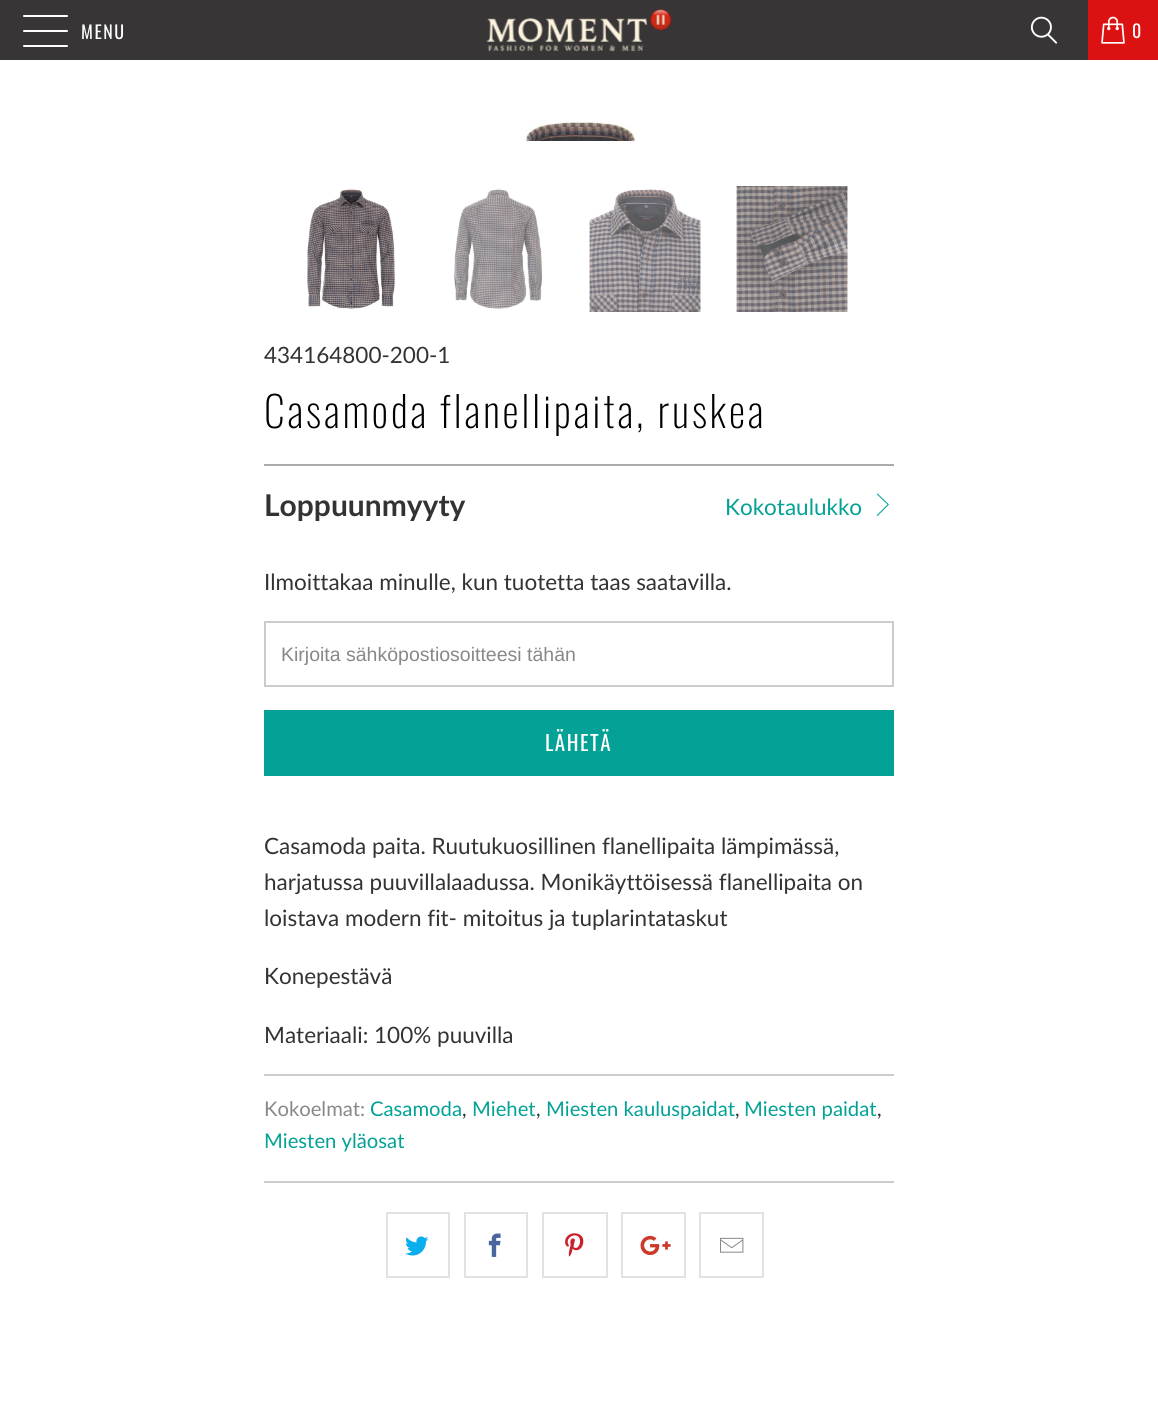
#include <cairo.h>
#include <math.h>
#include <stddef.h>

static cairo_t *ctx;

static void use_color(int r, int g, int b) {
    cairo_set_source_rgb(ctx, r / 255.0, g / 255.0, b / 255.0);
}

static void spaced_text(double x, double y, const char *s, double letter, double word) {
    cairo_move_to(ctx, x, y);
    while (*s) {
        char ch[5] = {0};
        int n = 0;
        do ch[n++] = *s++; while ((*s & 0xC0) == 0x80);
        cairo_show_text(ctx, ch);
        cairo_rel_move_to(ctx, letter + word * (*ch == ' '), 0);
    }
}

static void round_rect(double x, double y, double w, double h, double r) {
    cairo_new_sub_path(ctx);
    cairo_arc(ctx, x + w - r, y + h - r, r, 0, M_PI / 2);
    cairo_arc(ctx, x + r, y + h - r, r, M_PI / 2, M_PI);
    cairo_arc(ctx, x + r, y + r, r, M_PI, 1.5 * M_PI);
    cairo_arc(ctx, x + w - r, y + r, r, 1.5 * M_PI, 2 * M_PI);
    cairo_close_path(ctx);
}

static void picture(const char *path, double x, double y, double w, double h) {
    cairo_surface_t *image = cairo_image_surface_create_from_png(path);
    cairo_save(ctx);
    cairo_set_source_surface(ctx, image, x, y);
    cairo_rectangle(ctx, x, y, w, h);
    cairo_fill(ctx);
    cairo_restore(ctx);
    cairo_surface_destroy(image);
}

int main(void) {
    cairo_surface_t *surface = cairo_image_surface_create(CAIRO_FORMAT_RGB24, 1158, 1411);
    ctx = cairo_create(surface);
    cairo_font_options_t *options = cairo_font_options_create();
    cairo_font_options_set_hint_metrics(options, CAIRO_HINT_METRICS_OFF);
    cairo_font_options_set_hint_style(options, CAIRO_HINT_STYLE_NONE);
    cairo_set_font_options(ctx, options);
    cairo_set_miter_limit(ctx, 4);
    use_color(255, 255, 255);
    cairo_paint(ctx);
    use_color(55, 53, 53);
    cairo_rectangle(ctx, 0, 0, 1088, 60);
    cairo_fill(ctx);
    use_color(255, 255, 255);
    round_rect(23, 15, 45, 2, 1);
    cairo_fill(ctx);
    round_rect(23, 30, 45, 2, 1);
    cairo_fill(ctx);
    round_rect(23, 45, 45, 2, 1);
    cairo_fill(ctx);
    cairo_select_font_face(ctx, "Oswald", CAIRO_FONT_SLANT_NORMAL, CAIRO_FONT_WEIGHT_NORMAL);
    cairo_set_font_size(ctx, 18);
    spaced_text(81, 39, "MENU", 1.5, 0);
    picture("img1.png", 486, 9, 186, 43);
    picture("img2.png", 1030, 16, 28, 28);
    use_color(220, 17, 17);
    cairo_rectangle(ctx, 1088, 0, 70, 60);
    cairo_fill(ctx);
    picture("img3.png", 1101, 16, 24, 28);
    use_color(255, 255, 255);
    spaced_text(1132, 38, "0", 1.5, 0);
    picture("img4.png", 525, 121, 112, 20);
    picture("img5.png", 307, 189, 89, 120);
    picture("img6.png", 454, 189, 89, 121);
    picture("img7.png", 589, 189, 113, 123);
    picture("img8.png", 736, 186, 112, 126);
    cairo_select_font_face(ctx, "Lato", CAIRO_FONT_SLANT_NORMAL, CAIRO_FONT_WEIGHT_NORMAL);
    cairo_set_font_size(ctx, 22.5);
    use_color(51, 51, 51);
    cairo_move_to(ctx, 264, 363);
    cairo_show_text(ctx, "434164800-200-1");
    cairo_select_font_face(ctx, "Oswald ExtraLight", CAIRO_FONT_SLANT_NORMAL, CAIRO_FONT_WEIGHT_NORMAL);
    cairo_set_font_size(ctx, 42);
    use_color(0, 0, 0);
    spaced_text(264, 428, "Casamoda flanellipaita, ruskea", 3, 0);
    use_color(170, 170, 170);
    cairo_rectangle(ctx, 264, 464, 630, 2);
    cairo_fill(ctx);
    cairo_select_font_face(ctx, "Lato", CAIRO_FONT_SLANT_NORMAL, CAIRO_FONT_WEIGHT_BOLD);
    cairo_set_font_size(ctx, 30);
    use_color(51, 51, 51);
    cairo_move_to(ctx, 264, 516);
    cairo_show_text(ctx, "Loppuunmyyty");
    cairo_select_font_face(ctx, "Lato", CAIRO_FONT_SLANT_NORMAL, CAIRO_FONT_WEIGHT_NORMAL);
    cairo_set_font_size(ctx, 22.5);
    use_color(3, 161, 150);
    cairo_move_to(ctx, 725, 515);
    cairo_show_text(ctx, "Kokotaulukko");
    cairo_new_path(ctx);
    cairo_move_to(ctx, 877.5, 516);
    cairo_line_to(ctx, 876.5, 515.5);
    cairo_line_to(ctx, 887.5, 504.5);
    cairo_line_to(ctx, 876.5, 494);
    cairo_line_to(ctx, 877.5, 493.5);
    cairo_line_to(ctx, 889, 504.5);
    cairo_close_path(ctx);
    cairo_fill(ctx);
    use_color(51, 51, 51);
    cairo_move_to(ctx, 264, 590);
    cairo_show_text(ctx, "Ilmoittakaa minulle, kun tuotetta taas saatavilla.");
    cairo_rectangle(ctx, 265, 622, 628, 64);
    use_color(204, 204, 204);
    cairo_stroke(ctx);
    cairo_select_font_face(ctx, "Liberation Sans", CAIRO_FONT_SLANT_NORMAL, CAIRO_FONT_WEIGHT_NORMAL);
    cairo_set_font_size(ctx, 19.5);
    use_color(136, 136, 136);
    cairo_move_to(ctx, 281, 661);
    cairo_show_text(ctx, "Kirjoita sähköpostiosoitteesi tähän");
    use_color(3, 161, 150);
    cairo_rectangle(ctx, 264, 710, 630, 66);
    cairo_fill(ctx);
    cairo_select_font_face(ctx, "Oswald", CAIRO_FONT_SLANT_NORMAL, CAIRO_FONT_WEIGHT_NORMAL);
    cairo_set_font_size(ctx, 21);
    use_color(255, 255, 255);
    spaced_text(545, 751, "LÄHETÄ", 1.5, 0);
    cairo_select_font_face(ctx, "Lato", CAIRO_FONT_SLANT_NORMAL, CAIRO_FONT_WEIGHT_NORMAL);
    cairo_set_font_size(ctx, 22.5);
    use_color(51, 51, 51);
    cairo_move_to(ctx, 264, 854);
    cairo_show_text(ctx, "Casamoda paita. Ruutukuosillinen flanellipaita lämpimässä,");
    cairo_move_to(ctx, 264, 890);
    cairo_show_text(ctx, "harjatussa puuvillalaadussa. Monikäyttöisessä flanellipaita on");
    cairo_move_to(ctx, 264, 926);
    cairo_show_text(ctx, "loistava modern fit- mitoitus ja tuplarintataskut");
    cairo_move_to(ctx, 264, 984);
    cairo_show_text(ctx, "Konepestävä");
    cairo_move_to(ctx, 264, 1043);
    cairo_show_text(ctx, "Materiaali: 100% puuvilla");
    use_color(204, 204, 204);
    cairo_rectangle(ctx, 264, 1074, 630, 2);
    cairo_fill(ctx);
    cairo_set_font_size(ctx, 20.25);
    use_color(136, 136, 136);
    cairo_move_to(ctx, 264, 1116);
    cairo_show_text(ctx, "Kokoelmat:");
    use_color(3, 161, 150);
    cairo_move_to(ctx, 370, 1116);
    cairo_show_text(ctx, "Casamoda");
    use_color(51, 51, 51);
    cairo_move_to(ctx, 462, 1116);
    cairo_show_text(ctx, ",");
    use_color(3, 161, 150);
    cairo_move_to(ctx, 472, 1116);
    cairo_show_text(ctx, "Miehet");
    use_color(51, 51, 51);
    cairo_move_to(ctx, 536, 1116);
    cairo_show_text(ctx, ",");
    use_color(3, 161, 150);
    cairo_move_to(ctx, 546, 1116);
    cairo_show_text(ctx, "Miesten kauluspaidat");
    use_color(51, 51, 51);
    cairo_move_to(ctx, 735, 1116);
    cairo_show_text(ctx, ",");
    use_color(3, 161, 150);
    cairo_move_to(ctx, 744, 1116);
    cairo_show_text(ctx, "Miesten paidat");
    use_color(51, 51, 51);
    cairo_move_to(ctx, 877, 1116);
    cairo_show_text(ctx, ",");
    use_color(3, 161, 150);
    cairo_move_to(ctx, 264, 1148);
    cairo_show_text(ctx, "Miesten yläosat");
    use_color(204, 204, 204);
    cairo_rectangle(ctx, 264, 1181, 630, 2);
    cairo_fill(ctx);
    cairo_rectangle(ctx, 387, 1213, 62, 64);
    use_color(226, 226, 226);
    cairo_stroke(ctx);
    picture("img9.png", 405, 1236, 24, 20);
    cairo_rectangle(ctx, 465, 1213, 62, 64);
    cairo_stroke(ctx);
    picture("img10.png", 488, 1233, 13, 24);
    cairo_rectangle(ctx, 543, 1213, 64, 64);
    cairo_stroke(ctx);
    picture("img11.png", 565, 1233, 19, 24);
    cairo_rectangle(ctx, 622, 1213, 63, 64);
    cairo_stroke(ctx);
    picture("img12.png", 640, 1235, 31, 20);
    cairo_rectangle(ctx, 700, 1213, 63, 64);
    cairo_stroke(ctx);
    picture("img13.png", 720, 1237, 24, 16);
    cairo_surface_write_to_png(surface, "result.png");
    cairo_font_options_destroy(options);
    cairo_destroy(ctx);
    cairo_surface_destroy(surface);
    return 0;
}
